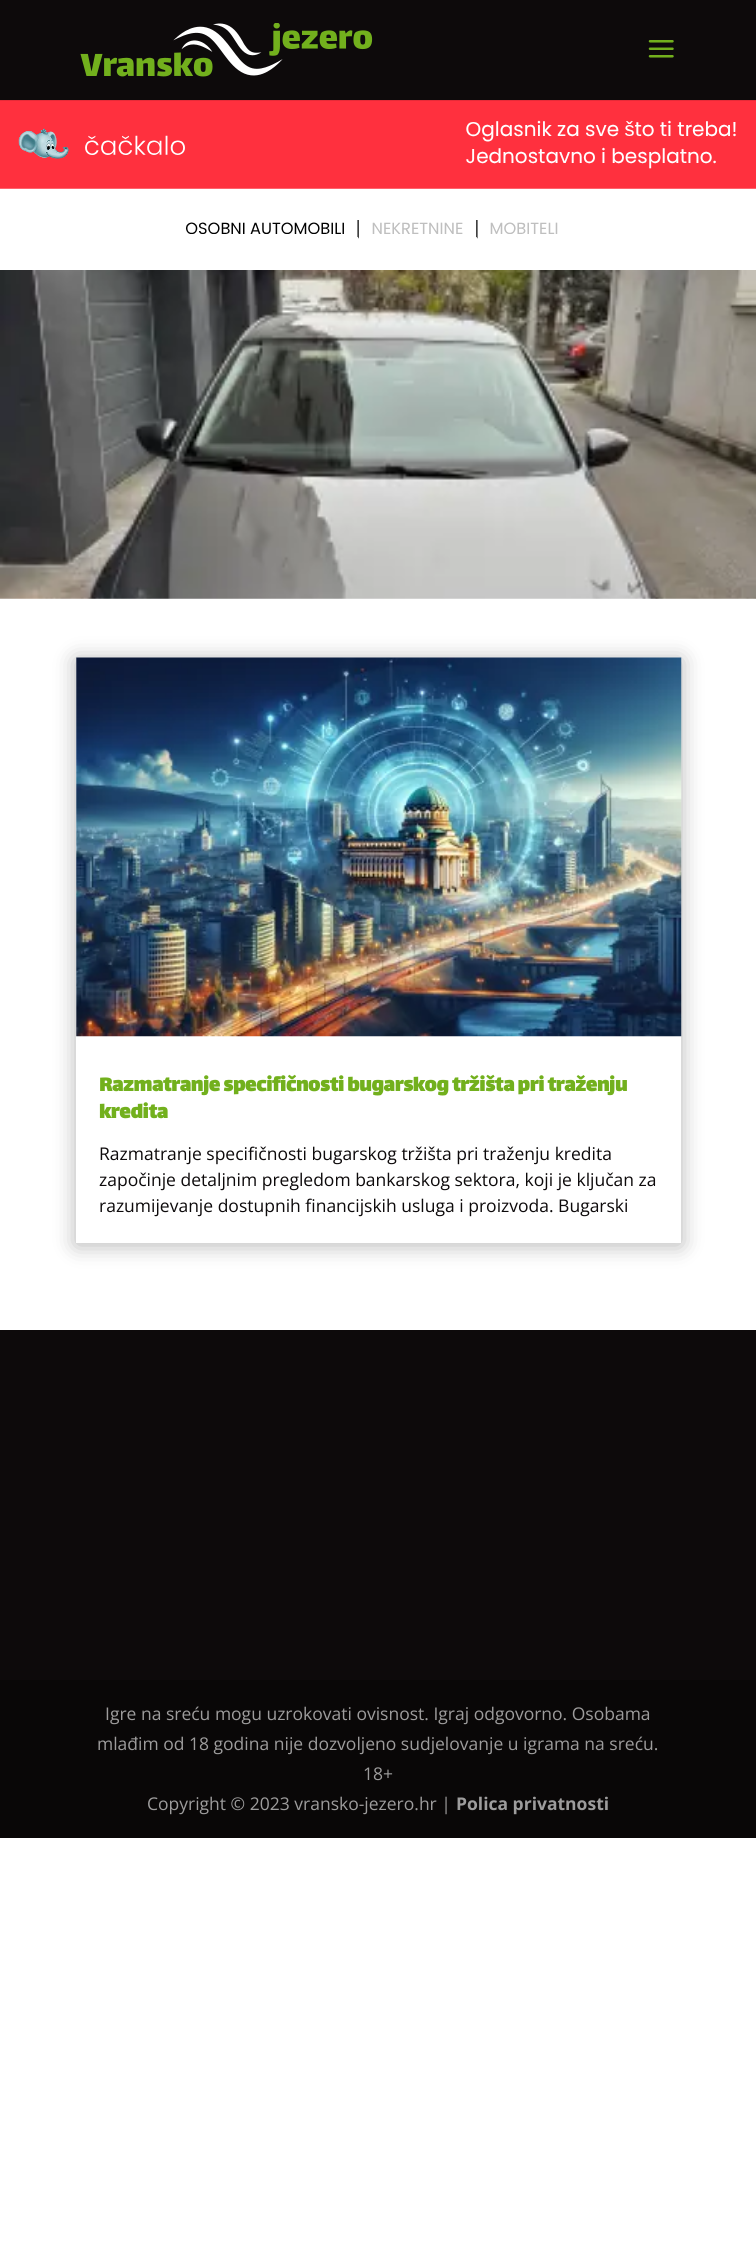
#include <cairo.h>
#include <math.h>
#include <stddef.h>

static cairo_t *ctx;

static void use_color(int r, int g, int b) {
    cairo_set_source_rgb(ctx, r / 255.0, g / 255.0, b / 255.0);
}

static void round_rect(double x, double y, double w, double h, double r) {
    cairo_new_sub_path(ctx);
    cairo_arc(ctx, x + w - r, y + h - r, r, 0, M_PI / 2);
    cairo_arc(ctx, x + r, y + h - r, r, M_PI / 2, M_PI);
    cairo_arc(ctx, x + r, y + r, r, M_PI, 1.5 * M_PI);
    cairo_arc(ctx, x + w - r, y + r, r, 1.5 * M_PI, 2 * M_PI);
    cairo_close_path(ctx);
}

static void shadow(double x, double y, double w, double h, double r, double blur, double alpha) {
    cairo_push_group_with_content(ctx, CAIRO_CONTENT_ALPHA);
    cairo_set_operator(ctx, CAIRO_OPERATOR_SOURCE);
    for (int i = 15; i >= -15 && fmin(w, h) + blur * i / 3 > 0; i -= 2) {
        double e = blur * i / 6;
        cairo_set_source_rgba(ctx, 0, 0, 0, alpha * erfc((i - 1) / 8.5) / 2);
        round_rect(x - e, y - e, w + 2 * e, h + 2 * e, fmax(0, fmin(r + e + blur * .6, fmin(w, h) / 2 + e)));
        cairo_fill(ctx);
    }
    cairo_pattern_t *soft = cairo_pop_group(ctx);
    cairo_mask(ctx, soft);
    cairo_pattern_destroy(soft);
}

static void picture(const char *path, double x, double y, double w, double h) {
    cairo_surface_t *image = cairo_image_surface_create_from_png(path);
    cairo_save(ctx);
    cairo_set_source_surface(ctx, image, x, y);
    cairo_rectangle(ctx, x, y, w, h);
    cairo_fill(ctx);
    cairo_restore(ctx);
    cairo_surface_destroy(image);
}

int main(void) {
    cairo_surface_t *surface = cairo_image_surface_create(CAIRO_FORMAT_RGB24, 756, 2250);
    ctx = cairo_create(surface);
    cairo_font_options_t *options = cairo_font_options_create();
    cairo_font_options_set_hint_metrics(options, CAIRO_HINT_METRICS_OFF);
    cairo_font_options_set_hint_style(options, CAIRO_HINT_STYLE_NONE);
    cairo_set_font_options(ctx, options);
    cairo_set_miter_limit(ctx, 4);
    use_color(255, 255, 255);
    cairo_paint(ctx);
    use_color(230, 43, 56);
    cairo_rectangle(ctx, 0, 100, 756, 1);
    cairo_fill(ctx);
    use_color(13, 10, 11);
    cairo_rectangle(ctx, 0, 0, 756, 100);
    cairo_fill(ctx);
    picture("img1.png", 80, 23, 293, 54);
    picture("img2.png", 648, 40, 26, 18);
    picture("img3.png", 0, 101, 756, 498);
    use_color(0, 0, 0);
    shadow(76, 660, 605, 585, 0, 11, 0.3);
    use_color(255, 255, 255);
    cairo_rectangle(ctx, 76, 658, 605, 585);
    cairo_fill(ctx);
    picture("img4.png", 76, 657, 606, 380);
    cairo_select_font_face(ctx, "Lalezar", CAIRO_FONT_SLANT_NORMAL, CAIRO_FONT_WEIGHT_BOLD);
    cairo_set_font_size(ctx, 22.5);
    use_color(114, 176, 29);
    cairo_move_to(ctx, 99, 1091);
    cairo_show_text(ctx, "Razmatranje specifičnosti bugarskog tržišta pri traženju");
    cairo_move_to(ctx, 99, 1118);
    cairo_show_text(ctx, "kredita");
    cairo_select_font_face(ctx, "Open Sans", CAIRO_FONT_SLANT_NORMAL, CAIRO_FONT_WEIGHT_NORMAL);
    cairo_set_font_size(ctx, 17.5);
    use_color(13, 10, 11);
    cairo_move_to(ctx, 99, 1160);
    cairo_show_text(ctx, "Razmatranje specifičnosti bugarskog tržišta pri traženju kredita");
    cairo_move_to(ctx, 99, 1186);
    cairo_show_text(ctx, "započinje detaljnim pregledom bankarskog sektora, koji je ključan za");
    cairo_move_to(ctx, 99, 1212);
    cairo_show_text(ctx, "razumijevanje dostupnih financijskih usluga i proizvoda. Bugarski");
    cairo_rectangle(ctx, 0, 1330, 756, 350);
    cairo_fill(ctx);
    use_color(9, 7, 7);
    cairo_rectangle(ctx, 0, 1680, 756, 158);
    cairo_fill(ctx);
    use_color(157, 156, 156);
    cairo_move_to(ctx, 105, 1720);
    cairo_show_text(ctx, "Igre na sreću mogu uzrokovati ovisnost. Igraj odgovorno. Osobama");
    cairo_move_to(ctx, 97, 1750);
    cairo_show_text(ctx, "mlađim od 18 godina nije dozvoljeno sudjelovanje u igrama na sreću.");
    cairo_move_to(ctx, 363, 1780);
    cairo_show_text(ctx, "18+");
    cairo_move_to(ctx, 147, 1810);
    cairo_show_text(ctx, "Copyright © 2023 vransko-jezero.hr |");
    cairo_select_font_face(ctx, "Open Sans", CAIRO_FONT_SLANT_NORMAL, CAIRO_FONT_WEIGHT_BOLD);
    cairo_move_to(ctx, 456, 1810);
    cairo_show_text(ctx, "Polica privatnosti");
    cairo_surface_write_to_png(surface, "result.png");
    cairo_font_options_destroy(options);
    cairo_destroy(ctx);
    cairo_surface_destroy(surface);
    return 0;
}
